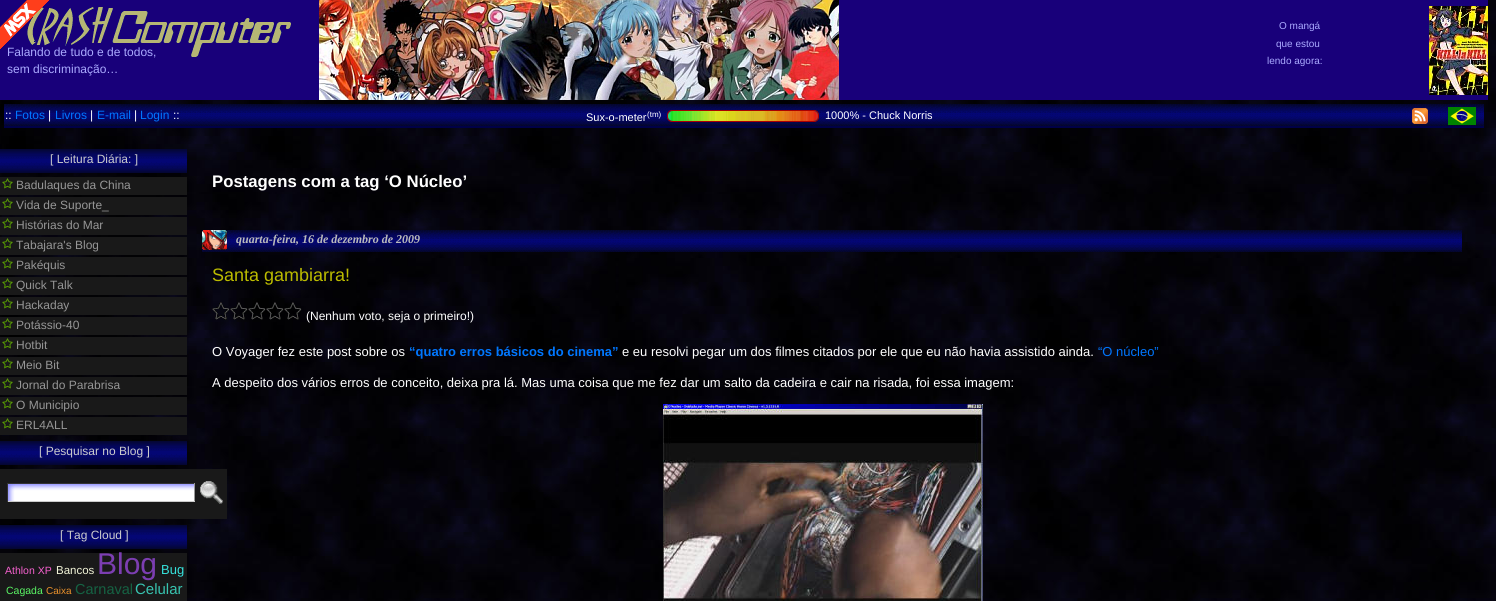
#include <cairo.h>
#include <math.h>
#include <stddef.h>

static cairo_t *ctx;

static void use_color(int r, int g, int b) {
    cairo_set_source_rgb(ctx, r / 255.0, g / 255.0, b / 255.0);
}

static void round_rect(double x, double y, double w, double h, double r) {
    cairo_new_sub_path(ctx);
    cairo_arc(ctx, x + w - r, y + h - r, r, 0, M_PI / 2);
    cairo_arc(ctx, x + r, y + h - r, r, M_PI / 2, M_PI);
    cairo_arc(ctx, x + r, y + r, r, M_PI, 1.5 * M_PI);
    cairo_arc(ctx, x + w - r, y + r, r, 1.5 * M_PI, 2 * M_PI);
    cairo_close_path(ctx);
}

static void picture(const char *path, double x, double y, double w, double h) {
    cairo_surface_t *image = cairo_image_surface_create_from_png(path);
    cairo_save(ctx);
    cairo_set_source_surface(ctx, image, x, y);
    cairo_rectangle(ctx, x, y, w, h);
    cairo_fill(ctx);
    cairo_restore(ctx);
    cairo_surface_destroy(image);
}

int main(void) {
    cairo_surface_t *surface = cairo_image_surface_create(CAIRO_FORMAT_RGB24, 1496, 601);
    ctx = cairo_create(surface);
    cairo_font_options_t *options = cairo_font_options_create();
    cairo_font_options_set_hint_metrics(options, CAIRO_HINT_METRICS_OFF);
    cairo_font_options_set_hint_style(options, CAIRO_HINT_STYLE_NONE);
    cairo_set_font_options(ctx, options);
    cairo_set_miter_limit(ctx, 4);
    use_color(255, 255, 255);
    cairo_paint(ctx);
    picture("img1.png", 0, 0, 1496, 601);
    use_color(24, 0, 122);
    cairo_rectangle(ctx, 0, 0, 1488, 100);
    cairo_fill(ctx);
    picture("img2.png", 0, 0, 839, 100);
    cairo_select_font_face(ctx, "Liberation Sans", CAIRO_FONT_SLANT_NORMAL, CAIRO_FONT_WEIGHT_NORMAL);
    cairo_set_font_size(ctx, 12);
    use_color(170, 170, 255);
    cairo_move_to(ctx, 7, 56);
    cairo_show_text(ctx, "Falando de tudo e de todos,");
    cairo_move_to(ctx, 7, 73);
    cairo_show_text(ctx, "sem discriminação…");
    cairo_set_font_size(ctx, 10);
    cairo_move_to(ctx, 1279, 29);
    cairo_show_text(ctx, "O mangá");
    cairo_move_to(ctx, 1276, 47);
    cairo_show_text(ctx, "que estou");
    cairo_move_to(ctx, 1267, 64);
    cairo_show_text(ctx, "lendo agora:");
    picture("img3.png", 1429, 6, 59, 89);
    use_color(0, 0, 72);
    cairo_rectangle(ctx, 4, 126, 1480, 2);
    cairo_fill(ctx);
    picture("img4.png", 4, 104, 1480, 22);
    cairo_set_font_size(ctx, 12);
    use_color(255, 255, 255);
    cairo_move_to(ctx, 5, 119);
    cairo_show_text(ctx, "::");
    use_color(0, 119, 255);
    cairo_move_to(ctx, 15, 119);
    cairo_show_text(ctx, "Fotos");
    use_color(255, 255, 255);
    cairo_move_to(ctx, 48, 119);
    cairo_show_text(ctx, "|");
    use_color(0, 119, 255);
    cairo_move_to(ctx, 55, 119);
    cairo_show_text(ctx, "Livros");
    use_color(255, 255, 255);
    cairo_move_to(ctx, 90, 119);
    cairo_show_text(ctx, "|");
    use_color(0, 119, 255);
    cairo_move_to(ctx, 97, 119);
    cairo_show_text(ctx, "E-mail");
    use_color(255, 255, 255);
    cairo_move_to(ctx, 134, 119);
    cairo_show_text(ctx, "|");
    use_color(0, 119, 255);
    cairo_move_to(ctx, 140, 119);
    cairo_show_text(ctx, "Login");
    use_color(255, 255, 255);
    cairo_move_to(ctx, 173, 119);
    cairo_show_text(ctx, "::");
    cairo_set_font_size(ctx, 11);
    cairo_move_to(ctx, 586, 121);
    cairo_show_text(ctx, "Sux-o-meter");
    cairo_set_font_size(ctx, 8);
    cairo_move_to(ctx, 647, 117);
    cairo_show_text(ctx, "(tm)");
    use_color(80, 80, 80);
    round_rect(667.5, 110.5, 151, 11, 4.5);
    cairo_fill_preserve(ctx);
    use_color(170, 0, 0);
    cairo_set_line_width(ctx, 1);
    cairo_stroke(ctx);
    picture("img5.png", 668, 111, 150, 10);
    cairo_set_font_size(ctx, 11);
    use_color(255, 255, 255);
    cairo_move_to(ctx, 825, 119);
    cairo_show_text(ctx, "1000% - Chuck Norris");
    picture("img6.png", 1412, 108, 16, 16);
    picture("img7.png", 1448, 107, 28, 18);
    picture("img8.png", 0, 149, 187, 24);
    cairo_set_font_size(ctx, 12);
    use_color(204, 204, 204);
    cairo_move_to(ctx, 50, 163);
    cairo_show_text(ctx, "[ Leitura Diária: ]");
    use_color(25, 25, 25);
    cairo_rectangle(ctx, 0, 177, 187, 18);
    cairo_fill(ctx);
    picture("img9.png", 2, 178, 11, 11);
    use_color(150, 150, 150);
    cairo_move_to(ctx, 16, 189);
    cairo_show_text(ctx, "Badulaques da China");
    use_color(25, 25, 25);
    cairo_rectangle(ctx, 0, 197, 187, 18);
    cairo_fill(ctx);
    picture("img9.png", 2, 198, 11, 11);
    use_color(150, 150, 150);
    cairo_move_to(ctx, 16, 209);
    cairo_show_text(ctx, "Vida de Suporte_");
    use_color(25, 25, 25);
    cairo_rectangle(ctx, 0, 217, 187, 18);
    cairo_fill(ctx);
    picture("img9.png", 2, 218, 11, 11);
    use_color(150, 150, 150);
    cairo_move_to(ctx, 16, 229);
    cairo_show_text(ctx, "Histórias do Mar");
    use_color(25, 25, 25);
    cairo_rectangle(ctx, 0, 237, 187, 18);
    cairo_fill(ctx);
    picture("img9.png", 2, 238, 11, 11);
    use_color(150, 150, 150);
    cairo_move_to(ctx, 16, 249);
    cairo_show_text(ctx, "Tabajara's Blog");
    use_color(25, 25, 25);
    cairo_rectangle(ctx, 0, 257, 187, 18);
    cairo_fill(ctx);
    picture("img9.png", 2, 258, 11, 11);
    use_color(150, 150, 150);
    cairo_move_to(ctx, 16, 269);
    cairo_show_text(ctx, "Pakéquis");
    use_color(25, 25, 25);
    cairo_rectangle(ctx, 0, 277, 187, 18);
    cairo_fill(ctx);
    picture("img9.png", 2, 278, 11, 11);
    use_color(150, 150, 150);
    cairo_move_to(ctx, 16, 289);
    cairo_show_text(ctx, "Quick Talk");
    use_color(25, 25, 25);
    cairo_rectangle(ctx, 0, 297, 187, 18);
    cairo_fill(ctx);
    picture("img9.png", 2, 298, 11, 11);
    use_color(150, 150, 150);
    cairo_move_to(ctx, 16, 309);
    cairo_show_text(ctx, "Hackaday");
    use_color(25, 25, 25);
    cairo_rectangle(ctx, 0, 317, 187, 18);
    cairo_fill(ctx);
    picture("img9.png", 2, 318, 11, 11);
    use_color(150, 150, 150);
    cairo_move_to(ctx, 16, 329);
    cairo_show_text(ctx, "Potássio-40");
    use_color(25, 25, 25);
    cairo_rectangle(ctx, 0, 337, 187, 18);
    cairo_fill(ctx);
    picture("img9.png", 2, 338, 11, 11);
    use_color(150, 150, 150);
    cairo_move_to(ctx, 16, 349);
    cairo_show_text(ctx, "Hotbit");
    use_color(25, 25, 25);
    cairo_rectangle(ctx, 0, 357, 187, 18);
    cairo_fill(ctx);
    picture("img9.png", 2, 358, 11, 11);
    use_color(150, 150, 150);
    cairo_move_to(ctx, 16, 369);
    cairo_show_text(ctx, "Meio Bit");
    use_color(25, 25, 25);
    cairo_rectangle(ctx, 0, 377, 187, 18);
    cairo_fill(ctx);
    picture("img9.png", 2, 378, 11, 11);
    use_color(150, 150, 150);
    cairo_move_to(ctx, 16, 389);
    cairo_show_text(ctx, "Jornal do Parabrisa");
    use_color(25, 25, 25);
    cairo_rectangle(ctx, 0, 397, 187, 18);
    cairo_fill(ctx);
    picture("img9.png", 2, 398, 11, 11);
    use_color(150, 150, 150);
    cairo_move_to(ctx, 16, 409);
    cairo_show_text(ctx, "O Municipio");
    use_color(25, 25, 25);
    cairo_rectangle(ctx, 0, 417, 187, 18);
    cairo_fill(ctx);
    picture("img9.png", 2, 418, 11, 11);
    use_color(150, 150, 150);
    cairo_move_to(ctx, 16, 429);
    cairo_show_text(ctx, "ERL4ALL");
    picture("img8.png", 0, 441, 187, 24);
    use_color(204, 204, 204);
    cairo_move_to(ctx, 39, 455);
    cairo_show_text(ctx, "[ Pesquisar no Blog ]");
    use_color(25, 25, 25);
    cairo_rectangle(ctx, 0, 469, 227, 50);
    cairo_fill(ctx);
    picture("img10.png", 8, 484, 186, 17);
    use_color(51, 51, 51);
    cairo_rectangle(ctx, 7, 483, 188, 1);
    cairo_fill(ctx);
    use_color(153, 153, 153);
    cairo_rectangle(ctx, 194, 483, 1, 19);
    cairo_fill(ctx);
    use_color(204, 204, 204);
    cairo_rectangle(ctx, 7, 501, 188, 1);
    cairo_fill(ctx);
    use_color(51, 51, 51);
    cairo_rectangle(ctx, 7, 483, 1, 19);
    cairo_fill(ctx);
    picture("img11.png", 200, 481, 24, 23);
    picture("img8.png", 0, 525, 187, 24);
    use_color(204, 204, 204);
    cairo_move_to(ctx, 60, 539);
    cairo_show_text(ctx, "[ Tag Cloud ]");
    use_color(25, 25, 25);
    cairo_rectangle(ctx, 0, 553, 187, 48);
    cairo_fill(ctx);
    cairo_set_font_size(ctx, 10.5);
    use_color(246, 96, 207);
    cairo_move_to(ctx, 5, 574);
    cairo_show_text(ctx, "Athlon XP");
    cairo_set_font_size(ctx, 11.5);
    use_color(242, 244, 216);
    cairo_move_to(ctx, 56, 574);
    cairo_show_text(ctx, "Bancos");
    cairo_set_font_size(ctx, 30);
    use_color(124, 62, 178);
    cairo_move_to(ctx, 97, 574);
    cairo_show_text(ctx, "Blog");
    cairo_set_font_size(ctx, 13);
    use_color(54, 227, 221);
    cairo_move_to(ctx, 161, 574);
    cairo_show_text(ctx, "Bug");
    cairo_set_font_size(ctx, 10.5);
    use_color(90, 245, 100);
    cairo_move_to(ctx, 6, 594);
    cairo_show_text(ctx, "Cagada");
    cairo_set_font_size(ctx, 10);
    use_color(234, 145, 43);
    cairo_move_to(ctx, 46, 594);
    cairo_show_text(ctx, "Caixa");
    cairo_set_font_size(ctx, 14.5);
    use_color(21, 98, 67);
    cairo_move_to(ctx, 75, 594);
    cairo_show_text(ctx, "Carnaval");
    cairo_set_font_size(ctx, 15);
    use_color(55, 195, 175);
    cairo_move_to(ctx, 135, 594);
    cairo_show_text(ctx, "Celular");
    cairo_select_font_face(ctx, "Liberation Sans", CAIRO_FONT_SLANT_NORMAL, CAIRO_FONT_WEIGHT_BOLD);
    cairo_set_font_size(ctx, 16.75);
    use_color(255, 255, 255);
    cairo_move_to(ctx, 212, 187);
    cairo_show_text(ctx, "Postagens com a tag ‘O Núcleo’");
    picture("img12.png", 202, 230, 1260, 22);
    picture("img13.png", 202, 230, 25, 20);
    cairo_select_font_face(ctx, "Liberation Serif", CAIRO_FONT_SLANT_ITALIC, CAIRO_FONT_WEIGHT_BOLD);
    cairo_set_font_size(ctx, 12);
    use_color(187, 187, 187);
    cairo_move_to(ctx, 236, 243);
    cairo_show_text(ctx, "quarta-feira, 16 de dezembro de 2009");
    cairo_select_font_face(ctx, "Liberation Sans", CAIRO_FONT_SLANT_NORMAL, CAIRO_FONT_WEIGHT_NORMAL);
    cairo_set_font_size(ctx, 18);
    use_color(187, 187, 0);
    cairo_move_to(ctx, 212, 281);
    cairo_show_text(ctx, "Santa gambiarra!");
    picture("img14.png", 212, 302, 18, 18);
    picture("img15.png", 230, 302, 18, 18);
    picture("img16.png", 248, 302, 18, 18);
    picture("img17.png", 266, 302, 18, 18);
    picture("img18.png", 284, 302, 18, 18);
    cairo_set_font_size(ctx, 12);
    use_color(255, 255, 255);
    cairo_move_to(ctx, 306, 320);
    cairo_show_text(ctx, "(Nenhum voto, seja o primeiro!)");
    cairo_set_font_size(ctx, 13);
    cairo_move_to(ctx, 212, 356);
    cairo_show_text(ctx, "O Voyager fez este post sobre os");
    cairo_select_font_face(ctx, "Liberation Sans", CAIRO_FONT_SLANT_NORMAL, CAIRO_FONT_WEIGHT_BOLD);
    use_color(0, 119, 255);
    cairo_move_to(ctx, 409, 356);
    cairo_show_text(ctx, "“quatro erros básicos do cinema”");
    cairo_select_font_face(ctx, "Liberation Sans", CAIRO_FONT_SLANT_NORMAL, CAIRO_FONT_WEIGHT_NORMAL);
    use_color(255, 255, 255);
    cairo_move_to(ctx, 622, 356);
    cairo_show_text(ctx, "e eu resolvi pegar um dos filmes citados por ele que eu não havia assistido ainda.");
    use_color(0, 119, 255);
    cairo_move_to(ctx, 1098, 356);
    cairo_show_text(ctx, "“O núcleo”");
    use_color(255, 255, 255);
    cairo_move_to(ctx, 212, 387);
    cairo_show_text(ctx, "A despeito dos vários erros de conceito, deixa pra lá. Mas uma coisa que me fez dar um salto da cadeira e cair na risada, foi essa imagem:");
    picture("img19.png", 663, 404, 320, 197);
    cairo_surface_write_to_png(surface, "result.png");
    cairo_font_options_destroy(options);
    cairo_destroy(ctx);
    cairo_surface_destroy(surface);
    return 0;
}
